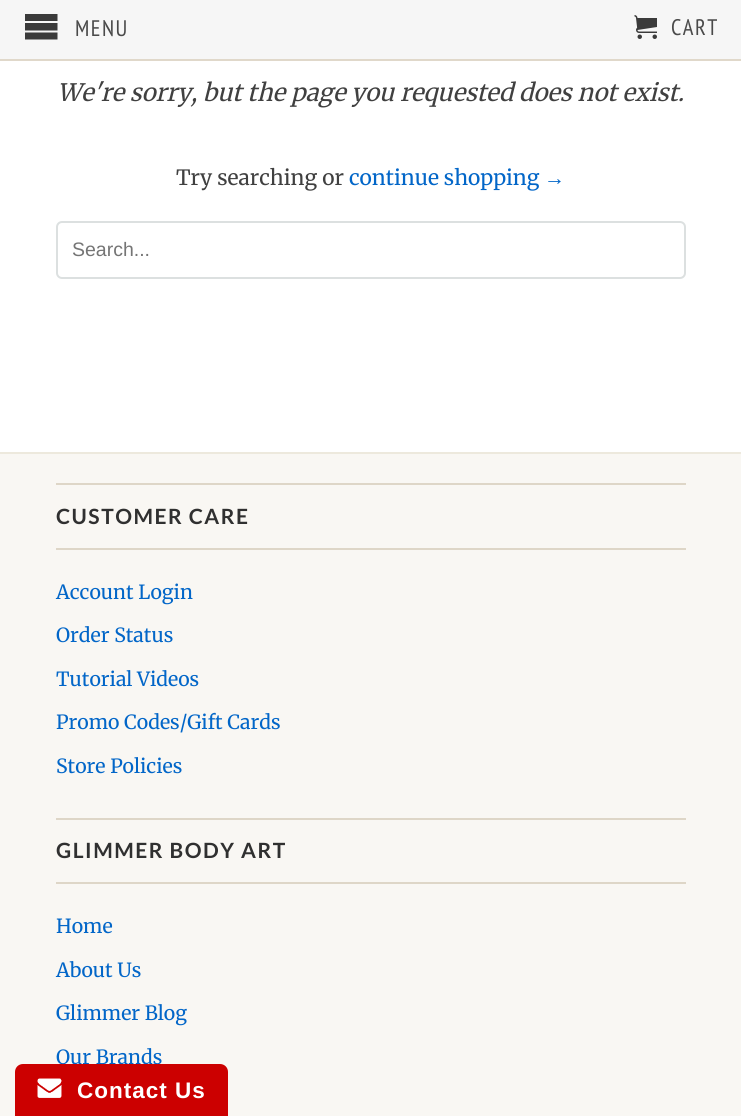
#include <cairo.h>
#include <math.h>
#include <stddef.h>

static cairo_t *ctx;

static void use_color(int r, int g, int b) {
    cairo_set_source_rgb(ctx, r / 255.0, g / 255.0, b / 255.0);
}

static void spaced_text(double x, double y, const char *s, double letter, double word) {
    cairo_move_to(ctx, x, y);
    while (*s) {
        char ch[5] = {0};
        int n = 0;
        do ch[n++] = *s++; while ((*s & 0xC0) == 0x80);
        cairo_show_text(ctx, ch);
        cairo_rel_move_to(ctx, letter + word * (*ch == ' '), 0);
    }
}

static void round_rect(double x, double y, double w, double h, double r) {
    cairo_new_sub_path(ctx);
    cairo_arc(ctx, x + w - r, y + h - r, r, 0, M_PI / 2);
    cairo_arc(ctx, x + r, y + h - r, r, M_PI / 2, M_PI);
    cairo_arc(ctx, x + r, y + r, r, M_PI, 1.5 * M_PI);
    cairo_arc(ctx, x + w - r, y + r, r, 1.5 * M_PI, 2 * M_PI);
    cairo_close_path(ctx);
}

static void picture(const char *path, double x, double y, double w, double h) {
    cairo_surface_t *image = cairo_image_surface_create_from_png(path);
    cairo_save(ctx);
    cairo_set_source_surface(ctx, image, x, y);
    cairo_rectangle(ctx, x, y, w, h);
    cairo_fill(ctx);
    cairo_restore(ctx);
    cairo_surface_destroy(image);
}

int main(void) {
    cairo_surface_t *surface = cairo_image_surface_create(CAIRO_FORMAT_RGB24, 741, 1116);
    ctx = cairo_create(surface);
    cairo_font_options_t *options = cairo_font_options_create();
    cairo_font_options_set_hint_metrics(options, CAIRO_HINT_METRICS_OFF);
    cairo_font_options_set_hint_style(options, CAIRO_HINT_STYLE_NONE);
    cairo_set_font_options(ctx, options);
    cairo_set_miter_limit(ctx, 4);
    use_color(255, 255, 255);
    cairo_paint(ctx);
    use_color(246, 246, 246);
    cairo_rectangle(ctx, 0, 0, 741, 59);
    cairo_fill(ctx);
    use_color(224, 216, 202);
    cairo_rectangle(ctx, 0, 59, 741, 2);
    cairo_fill(ctx);
    use_color(58, 58, 58);
    cairo_new_path(ctx);
    cairo_move_to(ctx, 25, 14);
    cairo_line_to(ctx, 25, 21);
    cairo_line_to(ctx, 57.5, 21);
    cairo_line_to(ctx, 57.5, 14);
    cairo_close_path(ctx);
    cairo_move_to(ctx, 25, 23);
    cairo_line_to(ctx, 25, 30.5);
    cairo_line_to(ctx, 57.5, 30.5);
    cairo_line_to(ctx, 57.5, 23);
    cairo_close_path(ctx);
    cairo_move_to(ctx, 25, 32.5);
    cairo_line_to(ctx, 25, 39.5);
    cairo_line_to(ctx, 57.5, 39.5);
    cairo_line_to(ctx, 57.5, 32.5);
    cairo_close_path(ctx);
    cairo_fill(ctx);
    cairo_select_font_face(ctx, "PT Sans Narrow", CAIRO_FONT_SLANT_NORMAL, CAIRO_FONT_WEIGHT_NORMAL);
    cairo_set_font_size(ctx, 22.5);
    use_color(74, 74, 74);
    spaced_text(75, 36, "MENU", 1.5, 0);
    picture("img1.png", 634, 15, 23, 24);
    spaced_text(671, 35, "CART", 1.5, 0);
    cairo_select_font_face(ctx, "Merriweather", CAIRO_FONT_SLANT_ITALIC, CAIRO_FONT_WEIGHT_NORMAL);
    cairo_set_font_size(ctx, 24);
    use_color(64, 64, 64);
    cairo_move_to(ctx, 57, 101);
    cairo_show_text(ctx, "We're sorry, but the page you requested does not exist.");
    cairo_select_font_face(ctx, "Merriweather", CAIRO_FONT_SLANT_NORMAL, CAIRO_FONT_WEIGHT_NORMAL);
    cairo_set_font_size(ctx, 21);
    cairo_move_to(ctx, 176, 185);
    cairo_show_text(ctx, "Try searching or");
    use_color(2, 102, 200);
    cairo_move_to(ctx, 349, 185);
    cairo_show_text(ctx, "continue shopping");
    cairo_select_font_face(ctx, "Liberation Serif", CAIRO_FONT_SLANT_NORMAL, CAIRO_FONT_WEIGHT_NORMAL);
    cairo_move_to(ctx, 544, 185);
    cairo_show_text(ctx, "→");
    round_rect(57, 222, 628, 56, 5);
    use_color(220, 224, 224);
    cairo_stroke(ctx);
    cairo_select_font_face(ctx, "Liberation Sans", CAIRO_FONT_SLANT_NORMAL, CAIRO_FONT_WEIGHT_NORMAL);
    cairo_set_font_size(ctx, 19.5);
    use_color(117, 117, 117);
    cairo_move_to(ctx, 72, 256);
    cairo_show_text(ctx, "Search...");
    use_color(249, 247, 243);
    cairo_rectangle(ctx, 0, 454, 741, 662);
    cairo_fill(ctx);
    use_color(237, 233, 221);
    cairo_rectangle(ctx, 0, 452, 741, 2);
    cairo_fill(ctx);
    use_color(222, 214, 199);
    cairo_rectangle(ctx, 56, 483, 630, 2);
    cairo_fill(ctx);
    cairo_rectangle(ctx, 56, 548, 630, 2);
    cairo_fill(ctx);
    cairo_select_font_face(ctx, "Lato", CAIRO_FONT_SLANT_NORMAL, CAIRO_FONT_WEIGHT_BOLD);
    cairo_set_font_size(ctx, 21);
    use_color(48, 48, 48);
    spaced_text(56, 524, "CUSTOMER CARE", 1.5, 0);
    cairo_select_font_face(ctx, "Merriweather", CAIRO_FONT_SLANT_NORMAL, CAIRO_FONT_WEIGHT_NORMAL);
    cairo_set_font_size(ctx, 19.5);
    use_color(2, 102, 200);
    cairo_move_to(ctx, 56, 599);
    cairo_show_text(ctx, "Account Login");
    cairo_move_to(ctx, 56, 642);
    cairo_show_text(ctx, "Order Status");
    cairo_move_to(ctx, 56, 686);
    cairo_show_text(ctx, "Tutorial Videos");
    cairo_move_to(ctx, 56, 729);
    cairo_show_text(ctx, "Promo Codes/Gift Cards");
    cairo_move_to(ctx, 56, 773);
    cairo_show_text(ctx, "Store Policies");
    use_color(222, 214, 199);
    cairo_rectangle(ctx, 56, 818, 630, 2);
    cairo_fill(ctx);
    cairo_rectangle(ctx, 56, 882, 630, 2);
    cairo_fill(ctx);
    cairo_select_font_face(ctx, "Lato", CAIRO_FONT_SLANT_NORMAL, CAIRO_FONT_WEIGHT_BOLD);
    cairo_set_font_size(ctx, 21);
    use_color(48, 48, 48);
    spaced_text(56, 858, "GLIMMER BODY ART", 1.5, 0);
    cairo_select_font_face(ctx, "Merriweather", CAIRO_FONT_SLANT_NORMAL, CAIRO_FONT_WEIGHT_NORMAL);
    cairo_set_font_size(ctx, 19.5);
    use_color(2, 102, 200);
    cairo_move_to(ctx, 56, 933);
    cairo_show_text(ctx, "Home");
    cairo_move_to(ctx, 56, 977);
    cairo_show_text(ctx, "About Us");
    cairo_move_to(ctx, 56, 1020);
    cairo_show_text(ctx, "Glimmer Blog");
    cairo_move_to(ctx, 56, 1064);
    cairo_show_text(ctx, "Our Brands");
    use_color(204, 0, 0);
    cairo_new_path(ctx);
    cairo_move_to(ctx, 23, 1064);
    cairo_line_to(ctx, 220, 1064);
    cairo_curve_to(ctx, 224.5, 1064, 228, 1067.5, 228, 1072);
    cairo_line_to(ctx, 228, 1116);
    cairo_line_to(ctx, 15, 1116);
    cairo_line_to(ctx, 15, 1072);
    cairo_curve_to(ctx, 15, 1067.5, 18.5, 1064, 23, 1064);
    cairo_close_path(ctx);
    cairo_fill(ctx);
    picture("img2.png", 37, 1078, 25, 20);
    cairo_select_font_face(ctx, "Liberation Sans", CAIRO_FONT_SLANT_NORMAL, CAIRO_FONT_WEIGHT_BOLD);
    cairo_set_font_size(ctx, 22.5);
    use_color(255, 255, 255);
    spaced_text(77, 1098, "Contact Us", 1, 0);
    cairo_surface_write_to_png(surface, "result.png");
    cairo_font_options_destroy(options);
    cairo_destroy(ctx);
    cairo_surface_destroy(surface);
    return 0;
}
